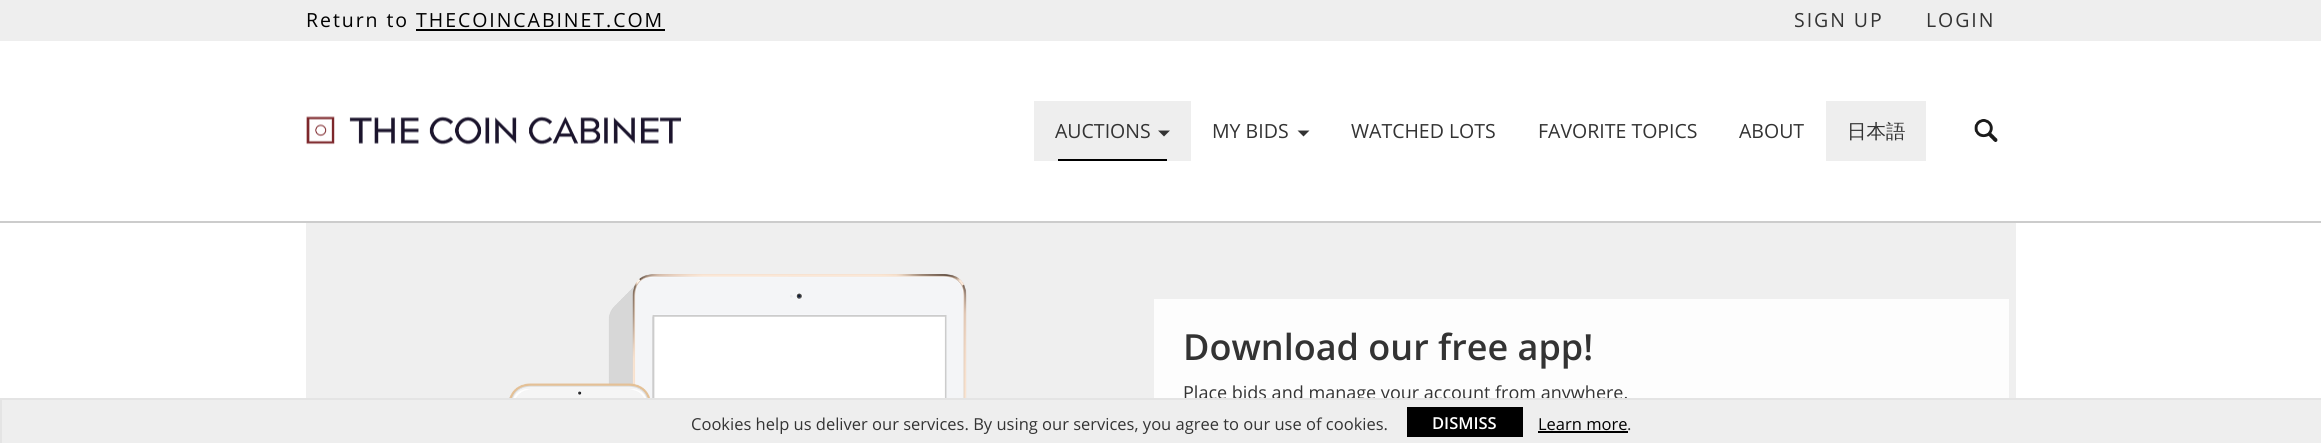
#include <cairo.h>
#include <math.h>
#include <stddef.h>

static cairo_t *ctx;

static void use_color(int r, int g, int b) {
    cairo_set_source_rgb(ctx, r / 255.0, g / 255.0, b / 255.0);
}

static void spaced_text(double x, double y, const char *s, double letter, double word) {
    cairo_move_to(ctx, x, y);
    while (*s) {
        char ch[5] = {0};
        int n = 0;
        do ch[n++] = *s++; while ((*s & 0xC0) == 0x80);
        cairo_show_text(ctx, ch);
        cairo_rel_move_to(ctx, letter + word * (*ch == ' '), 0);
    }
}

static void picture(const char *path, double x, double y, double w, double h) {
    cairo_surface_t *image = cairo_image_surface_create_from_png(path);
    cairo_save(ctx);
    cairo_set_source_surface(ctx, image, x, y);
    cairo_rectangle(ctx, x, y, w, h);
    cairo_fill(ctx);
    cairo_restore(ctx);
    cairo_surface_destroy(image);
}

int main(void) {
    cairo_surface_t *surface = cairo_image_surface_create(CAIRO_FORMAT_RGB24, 2321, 443);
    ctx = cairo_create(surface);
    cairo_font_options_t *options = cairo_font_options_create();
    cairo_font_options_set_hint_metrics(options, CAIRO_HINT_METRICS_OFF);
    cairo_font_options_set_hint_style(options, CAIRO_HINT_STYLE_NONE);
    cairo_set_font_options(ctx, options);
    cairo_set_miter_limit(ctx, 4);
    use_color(255, 255, 255);
    cairo_paint(ctx);
    use_color(238, 238, 238);
    cairo_rectangle(ctx, 0, 0, 2321, 41);
    cairo_fill(ctx);
    cairo_select_font_face(ctx, "Open Sans", CAIRO_FONT_SLANT_NORMAL, CAIRO_FONT_WEIGHT_NORMAL);
    cairo_set_font_size(ctx, 19.5);
    use_color(0, 0, 0);
    spaced_text(306, 27, "Return to THECOINCABINET.COM", 1.95, 0);
    cairo_rectangle(ctx, 416, 29, 249, 2);
    cairo_fill(ctx);
    use_color(51, 51, 51);
    spaced_text(1794, 27, "SIGN UP", 1.95, 0);
    spaced_text(1926, 27, "LOGIN", 1.95, 0);
    picture("img1.png", 306, 116, 375, 29);
    use_color(238, 238, 238);
    cairo_rectangle(ctx, 1034, 101, 157, 60);
    cairo_fill(ctx);
    use_color(51, 51, 51);
    cairo_move_to(ctx, 1055, 138);
    cairo_show_text(ctx, "AUCTIONS");
    cairo_new_path(ctx);
    cairo_move_to(ctx, 1158, 130.5);
    cairo_line_to(ctx, 1170, 130.5);
    cairo_line_to(ctx, 1164, 136.5);
    cairo_close_path(ctx);
    cairo_fill(ctx);
    use_color(0, 0, 0);
    cairo_rectangle(ctx, 1058, 159, 109, 2);
    cairo_fill(ctx);
    use_color(51, 51, 51);
    cairo_move_to(ctx, 1212, 138);
    cairo_show_text(ctx, "MY BIDS");
    cairo_new_path(ctx);
    cairo_move_to(ctx, 1297.5, 130.5);
    cairo_line_to(ctx, 1309.5, 130.5);
    cairo_line_to(ctx, 1303.5, 136.5);
    cairo_close_path(ctx);
    cairo_fill(ctx);
    cairo_move_to(ctx, 1351, 138);
    cairo_show_text(ctx, "WATCHED LOTS");
    cairo_move_to(ctx, 1538, 138);
    cairo_show_text(ctx, "FAVORITE TOPICS");
    cairo_move_to(ctx, 1739, 138);
    cairo_show_text(ctx, "ABOUT");
    use_color(238, 238, 238);
    cairo_rectangle(ctx, 1826, 101, 100, 60);
    cairo_fill(ctx);
    cairo_select_font_face(ctx, "WenQuanYi Zen Hei Medium", CAIRO_FONT_SLANT_NORMAL, CAIRO_FONT_WEIGHT_NORMAL);
    use_color(51, 51, 51);
    cairo_move_to(ctx, 1847, 138);
    cairo_show_text(ctx, "日本語");
    picture("img2.png", 1974, 119, 24, 23);
    use_color(204, 204, 204);
    cairo_rectangle(ctx, 0, 221, 2321, 2);
    cairo_fill(ctx);
    use_color(239, 239, 239);
    cairo_rectangle(ctx, 306, 223, 1710, 175);
    cairo_fill(ctx);
    picture("img3.png", 509, 274, 458, 124);
    use_color(253, 253, 253);
    cairo_rectangle(ctx, 1154, 299, 855, 99);
    cairo_fill(ctx);
    cairo_select_font_face(ctx, "Open Sans SemiBold", CAIRO_FONT_SLANT_NORMAL, CAIRO_FONT_WEIGHT_NORMAL);
    cairo_set_font_size(ctx, 36);
    use_color(51, 51, 51);
    cairo_move_to(ctx, 1183, 360);
    cairo_show_text(ctx, "Download our free app!");
    cairo_select_font_face(ctx, "Open Sans", CAIRO_FONT_SLANT_NORMAL, CAIRO_FONT_WEIGHT_NORMAL);
    cairo_set_font_size(ctx, 18);
    cairo_move_to(ctx, 1183, 399);
    cairo_show_text(ctx, "Place bids and manage your account from anywhere.");
    use_color(238, 238, 238);
    cairo_rectangle(ctx, 2, 400, 2319, 43);
    cairo_fill(ctx);
    use_color(228, 228, 228);
    cairo_rectangle(ctx, 0, 398, 2321, 2);
    cairo_fill(ctx);
    cairo_rectangle(ctx, 0, 398, 2, 45);
    cairo_fill(ctx);
    cairo_set_font_size(ctx, 16.5);
    use_color(51, 51, 51);
    cairo_move_to(ctx, 691, 430);
    cairo_show_text(ctx, "Cookies help us deliver our services. By using our services, you agree to our use of cookies.");
    use_color(0, 0, 0);
    cairo_rectangle(ctx, 1407, 407, 116, 30);
    cairo_fill(ctx);
    cairo_select_font_face(ctx, "Open Sans SemiBold", CAIRO_FONT_SLANT_NORMAL, CAIRO_FONT_WEIGHT_NORMAL);
    use_color(255, 255, 255);
    cairo_move_to(ctx, 1432, 429);
    cairo_show_text(ctx, "DISMISS");
    cairo_select_font_face(ctx, "Open Sans", CAIRO_FONT_SLANT_NORMAL, CAIRO_FONT_WEIGHT_NORMAL);
    use_color(0, 0, 0);
    cairo_move_to(ctx, 1538, 430);
    cairo_show_text(ctx, "Learn more");
    cairo_rectangle(ctx, 1538, 431, 90, 2);
    cairo_fill(ctx);
    use_color(51, 51, 51);
    cairo_move_to(ctx, 1627, 430);
    cairo_show_text(ctx, ".");
    cairo_surface_write_to_png(surface, "result.png");
    cairo_font_options_destroy(options);
    cairo_destroy(ctx);
    cairo_surface_destroy(surface);
    return 0;
}
